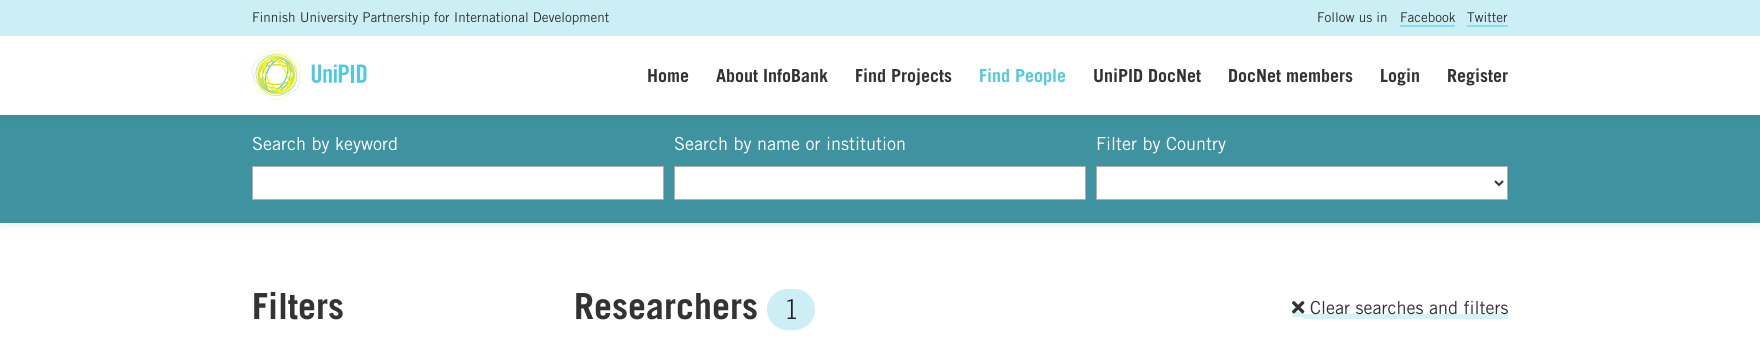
#include <cairo.h>
#include <math.h>
#include <stddef.h>

static cairo_t *ctx;

static void use_color(int r, int g, int b) {
    cairo_set_source_rgb(ctx, r / 255.0, g / 255.0, b / 255.0);
}

static void round_rect(double x, double y, double w, double h, double r) {
    cairo_new_sub_path(ctx);
    cairo_arc(ctx, x + w - r, y + h - r, r, 0, M_PI / 2);
    cairo_arc(ctx, x + r, y + h - r, r, M_PI / 2, M_PI);
    cairo_arc(ctx, x + r, y + r, r, M_PI, 1.5 * M_PI);
    cairo_arc(ctx, x + w - r, y + r, r, 1.5 * M_PI, 2 * M_PI);
    cairo_close_path(ctx);
}

static void shadow(double x, double y, double w, double h, double r, double blur, double alpha) {
    cairo_push_group_with_content(ctx, CAIRO_CONTENT_ALPHA);
    cairo_set_operator(ctx, CAIRO_OPERATOR_SOURCE);
    for (int i = 15; i >= -15 && fmin(w, h) + blur * i / 3 > 0; i -= 2) {
        double e = blur * i / 6;
        cairo_set_source_rgba(ctx, 0, 0, 0, alpha * erfc((i - 1) / 8.5) / 2);
        round_rect(x - e, y - e, w + 2 * e, h + 2 * e, fmax(0, fmin(r + e + blur * .6, fmin(w, h) / 2 + e)));
        cairo_fill(ctx);
    }
    cairo_pattern_t *soft = cairo_pop_group(ctx);
    cairo_mask(ctx, soft);
    cairo_pattern_destroy(soft);
}

static void picture(const char *path, double x, double y, double w, double h) {
    cairo_surface_t *image = cairo_image_surface_create_from_png(path);
    cairo_save(ctx);
    cairo_set_source_surface(ctx, image, x, y);
    cairo_rectangle(ctx, x, y, w, h);
    cairo_fill(ctx);
    cairo_restore(ctx);
    cairo_surface_destroy(image);
}

int main(void) {
    cairo_surface_t *surface = cairo_image_surface_create(CAIRO_FORMAT_RGB24, 1760, 346);
    ctx = cairo_create(surface);
    cairo_font_options_t *options = cairo_font_options_create();
    cairo_font_options_set_hint_metrics(options, CAIRO_HINT_METRICS_OFF);
    cairo_font_options_set_hint_style(options, CAIRO_HINT_STYLE_NONE);
    cairo_set_font_options(ctx, options);
    cairo_set_miter_limit(ctx, 4);
    use_color(255, 255, 255);
    cairo_paint(ctx);
    use_color(203, 239, 245);
    cairo_rectangle(ctx, 0, 0, 1760, 36);
    cairo_fill(ctx);
    cairo_select_font_face(ctx, "Trade Gothic", CAIRO_FONT_SLANT_NORMAL, CAIRO_FONT_WEIGHT_NORMAL);
    cairo_set_font_size(ctx, 13.5);
    use_color(51, 51, 51);
    cairo_move_to(ctx, 252, 22);
    cairo_show_text(ctx, "Finnish University Partnership for International Development");
    cairo_move_to(ctx, 1317, 22);
    cairo_show_text(ctx, "Follow us in");
    cairo_move_to(ctx, 1400, 22);
    cairo_show_text(ctx, "Facebook");
    use_color(142, 221, 234);
    cairo_rectangle(ctx, 1400, 25, 55, 2);
    cairo_fill(ctx);
    use_color(51, 51, 51);
    cairo_move_to(ctx, 1467, 22);
    cairo_show_text(ctx, "Twitter");
    use_color(142, 221, 234);
    cairo_rectangle(ctx, 1467, 25, 41, 2);
    cairo_fill(ctx);
    use_color(0, 0, 0);
    shadow(0, 116, 1760, 108, 0, 5, 0.1);
    use_color(63, 147, 161);
    cairo_rectangle(ctx, 0, 115, 1760, 108);
    cairo_fill(ctx);
    use_color(0, 0, 0);
    shadow(0, 40, 1760, 79, 0, 2, 0.05);
    use_color(255, 255, 255);
    cairo_rectangle(ctx, 0, 38, 1760, 77);
    cairo_fill(ctx);
    picture("img1.png", 252, 50, 115, 50);
    cairo_select_font_face(ctx, "Trade Gothic", CAIRO_FONT_SLANT_NORMAL, CAIRO_FONT_WEIGHT_BOLD);
    cairo_set_font_size(ctx, 18);
    use_color(51, 51, 51);
    cairo_move_to(ctx, 647, 82);
    cairo_show_text(ctx, "Home");
    cairo_move_to(ctx, 716, 82);
    cairo_show_text(ctx, "About InfoBank");
    cairo_move_to(ctx, 855, 82);
    cairo_show_text(ctx, "Find Projects");
    use_color(81, 202, 222);
    cairo_move_to(ctx, 979, 82);
    cairo_show_text(ctx, "Find People");
    use_color(51, 51, 51);
    cairo_move_to(ctx, 1093, 82);
    cairo_show_text(ctx, "UniPID DocNet");
    cairo_move_to(ctx, 1228, 82);
    cairo_show_text(ctx, "DocNet members");
    cairo_move_to(ctx, 1380, 82);
    cairo_show_text(ctx, "Login");
    cairo_move_to(ctx, 1447, 82);
    cairo_show_text(ctx, "Register");
    cairo_select_font_face(ctx, "Trade Gothic", CAIRO_FONT_SLANT_NORMAL, CAIRO_FONT_WEIGHT_NORMAL);
    use_color(255, 255, 255);
    cairo_move_to(ctx, 252, 150);
    cairo_show_text(ctx, "Search by keyword");
    cairo_rectangle(ctx, 252.5, 166.5, 411, 33);
    cairo_fill_preserve(ctx);
    use_color(173, 173, 173);
    cairo_set_line_width(ctx, 1);
    cairo_stroke(ctx);
    use_color(255, 255, 255);
    cairo_move_to(ctx, 674, 150);
    cairo_show_text(ctx, "Search by name or institution");
    cairo_rectangle(ctx, 674.5, 166.5, 411, 33);
    cairo_fill_preserve(ctx);
    use_color(173, 173, 173);
    cairo_stroke(ctx);
    use_color(255, 255, 255);
    cairo_move_to(ctx, 1096, 150);
    cairo_show_text(ctx, "Filter by Country");
    cairo_rectangle(ctx, 1096.5, 166.5, 411, 33);
    cairo_fill_preserve(ctx);
    use_color(173, 173, 173);
    cairo_stroke(ctx);
    cairo_new_path(ctx);
    cairo_move_to(ctx, 1495, 181);
    cairo_line_to(ctx, 1499, 185);
    cairo_line_to(ctx, 1503, 181);
    use_color(51, 51, 51);
    cairo_set_line_width(ctx, 2);
    cairo_stroke(ctx);
    cairo_select_font_face(ctx, "Trade Gothic", CAIRO_FONT_SLANT_NORMAL, CAIRO_FONT_WEIGHT_BOLD);
    cairo_set_font_size(ctx, 36);
    cairo_move_to(ctx, 252, 319);
    cairo_show_text(ctx, "Filters");
    cairo_move_to(ctx, 574, 319);
    cairo_show_text(ctx, "Researchers");
    use_color(203, 239, 245);
    round_rect(767, 289, 48, 41, 20.5);
    cairo_fill(ctx);
    cairo_select_font_face(ctx, "Trade Gothic Light", CAIRO_FONT_SLANT_NORMAL, CAIRO_FONT_WEIGHT_NORMAL);
    cairo_set_font_size(ctx, 27);
    use_color(33, 37, 41);
    cairo_move_to(ctx, 784, 319);
    cairo_show_text(ctx, "1");
    use_color(214, 241, 249);
    cairo_rectangle(ctx, 1292, 312, 12, 5);
    cairo_fill(ctx);
    cairo_rectangle(ctx, 1304, 314, 204, 5);
    cairo_fill(ctx);
    picture("img2.png", 1292, 301, 13, 13);
    cairo_select_font_face(ctx, "Trade Gothic", CAIRO_FONT_SLANT_NORMAL, CAIRO_FONT_WEIGHT_NORMAL);
    cairo_set_font_size(ctx, 18);
    use_color(51, 51, 51);
    cairo_move_to(ctx, 1310, 314);
    cairo_show_text(ctx, "Clear searches and filters");
    cairo_surface_write_to_png(surface, "result.png");
    cairo_font_options_destroy(options);
    cairo_destroy(ctx);
    cairo_surface_destroy(surface);
    return 0;
}
